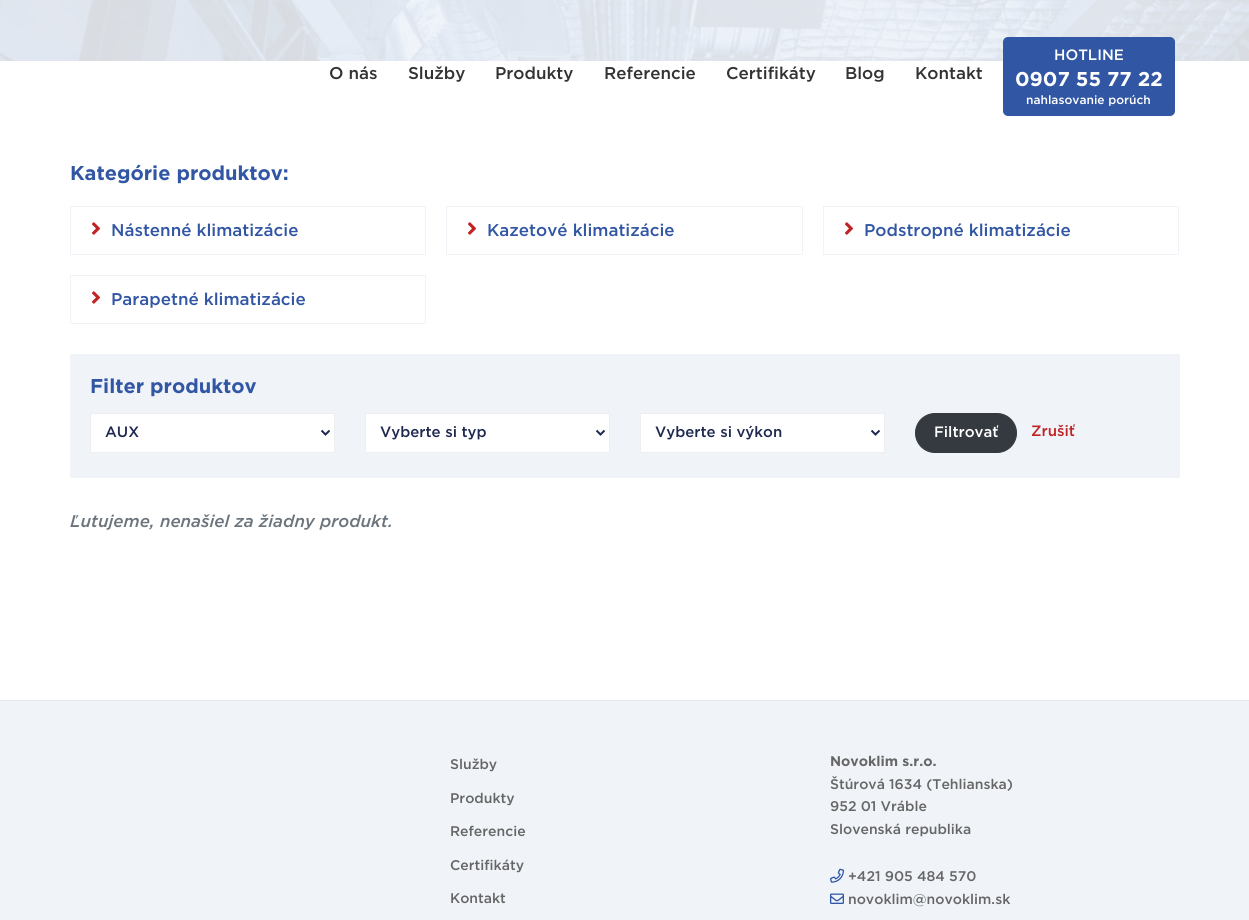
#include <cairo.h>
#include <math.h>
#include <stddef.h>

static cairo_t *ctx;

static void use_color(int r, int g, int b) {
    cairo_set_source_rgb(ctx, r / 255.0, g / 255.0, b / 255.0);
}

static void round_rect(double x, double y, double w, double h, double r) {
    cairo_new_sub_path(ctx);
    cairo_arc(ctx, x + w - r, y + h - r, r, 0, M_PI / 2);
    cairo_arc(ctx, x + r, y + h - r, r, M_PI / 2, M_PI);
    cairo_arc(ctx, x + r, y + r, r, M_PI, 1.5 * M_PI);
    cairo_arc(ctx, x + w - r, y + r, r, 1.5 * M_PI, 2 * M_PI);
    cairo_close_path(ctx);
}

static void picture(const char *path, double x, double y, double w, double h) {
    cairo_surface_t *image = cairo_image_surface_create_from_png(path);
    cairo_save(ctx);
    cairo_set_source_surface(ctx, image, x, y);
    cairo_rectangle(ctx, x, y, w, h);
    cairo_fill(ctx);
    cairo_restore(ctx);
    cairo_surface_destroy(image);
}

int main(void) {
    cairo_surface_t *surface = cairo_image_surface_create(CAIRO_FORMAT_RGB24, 1249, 920);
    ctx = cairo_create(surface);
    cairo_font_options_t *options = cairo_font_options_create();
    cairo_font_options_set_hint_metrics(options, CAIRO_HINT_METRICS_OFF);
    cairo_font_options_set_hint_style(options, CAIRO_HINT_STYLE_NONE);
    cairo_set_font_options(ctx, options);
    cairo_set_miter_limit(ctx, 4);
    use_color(255, 255, 255);
    cairo_paint(ctx);
    cairo_select_font_face(ctx, "Gotham Medium", CAIRO_FONT_SLANT_NORMAL, CAIRO_FONT_WEIGHT_NORMAL);
    cairo_set_font_size(ctx, 17);
    use_color(51, 51, 51);
    cairo_move_to(ctx, 329, 79);
    cairo_show_text(ctx, "O nás");
    cairo_move_to(ctx, 408, 79);
    cairo_show_text(ctx, "Služby");
    cairo_move_to(ctx, 495, 79);
    cairo_show_text(ctx, "Produkty");
    cairo_move_to(ctx, 604, 79);
    cairo_show_text(ctx, "Referencie");
    cairo_move_to(ctx, 726, 79);
    cairo_show_text(ctx, "Certifikáty");
    cairo_move_to(ctx, 845, 79);
    cairo_show_text(ctx, "Blog");
    cairo_move_to(ctx, 915, 79);
    cairo_show_text(ctx, "Kontakt");
    picture("img1.png", 0, 0, 1249, 61);
    use_color(49, 86, 164);
    round_rect(1003, 37, 172, 79, 5);
    cairo_fill(ctx);
    cairo_set_font_size(ctx, 15);
    use_color(255, 255, 255);
    cairo_move_to(ctx, 1054, 60);
    cairo_show_text(ctx, "HOTLINE");
    cairo_select_font_face(ctx, "Gotham", CAIRO_FONT_SLANT_NORMAL, CAIRO_FONT_WEIGHT_BOLD);
    cairo_set_font_size(ctx, 20);
    cairo_move_to(ctx, 1015, 86);
    cairo_show_text(ctx, "0907 55 77 22");
    cairo_select_font_face(ctx, "Gotham Medium", CAIRO_FONT_SLANT_NORMAL, CAIRO_FONT_WEIGHT_NORMAL);
    cairo_set_font_size(ctx, 12);
    cairo_move_to(ctx, 1026, 104);
    cairo_show_text(ctx, "nahlasovanie porúch");
    cairo_select_font_face(ctx, "Gotham", CAIRO_FONT_SLANT_NORMAL, CAIRO_FONT_WEIGHT_BOLD);
    cairo_set_font_size(ctx, 20);
    use_color(49, 86, 164);
    cairo_move_to(ctx, 70, 180);
    cairo_show_text(ctx, "Kategórie produktov:");
    cairo_rectangle(ctx, 70.5, 206.5, 355, 48);
    use_color(240, 244, 249);
    cairo_set_line_width(ctx, 1);
    cairo_stroke(ctx);
    picture("img2.png", 92, 222, 8, 13);
    cairo_select_font_face(ctx, "Gotham Medium", CAIRO_FONT_SLANT_NORMAL, CAIRO_FONT_WEIGHT_NORMAL);
    cairo_set_font_size(ctx, 17);
    use_color(49, 86, 164);
    cairo_move_to(ctx, 111, 236);
    cairo_show_text(ctx, "Nástenné klimatizácie");
    cairo_rectangle(ctx, 446.5, 206.5, 356, 48);
    use_color(240, 244, 249);
    cairo_stroke(ctx);
    picture("img2.png", 468, 222, 8, 13);
    use_color(49, 86, 164);
    cairo_move_to(ctx, 487, 236);
    cairo_show_text(ctx, "Kazetové klimatizácie");
    cairo_rectangle(ctx, 823.5, 206.5, 355, 48);
    use_color(240, 244, 249);
    cairo_stroke(ctx);
    picture("img2.png", 845, 222, 8, 13);
    use_color(49, 86, 164);
    cairo_move_to(ctx, 864, 236);
    cairo_show_text(ctx, "Podstropné klimatizácie");
    cairo_rectangle(ctx, 70.5, 275.5, 355, 48);
    use_color(240, 244, 249);
    cairo_stroke(ctx);
    picture("img2.png", 92, 291, 8, 13);
    use_color(49, 86, 164);
    cairo_move_to(ctx, 111, 305);
    cairo_show_text(ctx, "Parapetné klimatizácie");
    use_color(240, 244, 249);
    cairo_rectangle(ctx, 70, 354, 1110, 124);
    cairo_fill(ctx);
    cairo_select_font_face(ctx, "Gotham", CAIRO_FONT_SLANT_NORMAL, CAIRO_FONT_WEIGHT_BOLD);
    cairo_set_font_size(ctx, 20);
    use_color(49, 86, 164);
    cairo_move_to(ctx, 90, 393);
    cairo_show_text(ctx, "Filter produktov");
    use_color(255, 255, 255);
    cairo_rectangle(ctx, 90.5, 413.5, 244, 39);
    cairo_fill_preserve(ctx);
    use_color(238, 238, 238);
    cairo_stroke(ctx);
    cairo_new_path(ctx);
    cairo_move_to(ctx, 321.5, 430.5);
    cairo_line_to(ctx, 325.5, 434.5);
    cairo_line_to(ctx, 329.5, 430.5);
    use_color(31, 40, 79);
    cairo_set_line_width(ctx, 2);
    cairo_stroke(ctx);
    cairo_select_font_face(ctx, "Gotham Medium", CAIRO_FONT_SLANT_NORMAL, CAIRO_FONT_WEIGHT_NORMAL);
    cairo_set_font_size(ctx, 15);
    cairo_move_to(ctx, 105, 437);
    cairo_show_text(ctx, "AUX");
    use_color(255, 255, 255);
    cairo_rectangle(ctx, 365.5, 413.5, 244, 39);
    cairo_fill_preserve(ctx);
    use_color(238, 238, 238);
    cairo_set_line_width(ctx, 1);
    cairo_stroke(ctx);
    cairo_new_path(ctx);
    cairo_move_to(ctx, 596.5, 430.5);
    cairo_line_to(ctx, 600.5, 434.5);
    cairo_line_to(ctx, 604.5, 430.5);
    use_color(31, 40, 79);
    cairo_set_line_width(ctx, 2);
    cairo_stroke(ctx);
    cairo_move_to(ctx, 380, 437);
    cairo_show_text(ctx, "Vyberte si typ");
    use_color(255, 255, 255);
    cairo_rectangle(ctx, 640.5, 413.5, 244, 39);
    cairo_fill_preserve(ctx);
    use_color(238, 238, 238);
    cairo_set_line_width(ctx, 1);
    cairo_stroke(ctx);
    cairo_new_path(ctx);
    cairo_move_to(ctx, 871.5, 430.5);
    cairo_line_to(ctx, 875.5, 434.5);
    cairo_line_to(ctx, 879.5, 430.5);
    use_color(31, 40, 79);
    cairo_set_line_width(ctx, 2);
    cairo_stroke(ctx);
    cairo_move_to(ctx, 655, 437);
    cairo_show_text(ctx, "Vyberte si výkon");
    use_color(52, 58, 64);
    round_rect(915.5, 413.5, 101, 39, 19.5);
    cairo_fill_preserve(ctx);
    cairo_set_line_width(ctx, 1);
    cairo_stroke(ctx);
    use_color(255, 255, 255);
    cairo_move_to(ctx, 934, 437);
    cairo_show_text(ctx, "Filtrovať");
    use_color(192, 35, 35);
    cairo_move_to(ctx, 1031, 436);
    cairo_show_text(ctx, "Zrušiť");
    cairo_select_font_face(ctx, "Gotham Medium", CAIRO_FONT_SLANT_ITALIC, CAIRO_FONT_WEIGHT_NORMAL);
    cairo_set_font_size(ctx, 17);
    use_color(108, 117, 125);
    cairo_move_to(ctx, 70, 527);
    cairo_show_text(ctx, "Ľutujeme, nenašiel za žiadny produkt.");
    use_color(240, 244, 249);
    cairo_rectangle(ctx, 0, 701, 1249, 219);
    cairo_fill(ctx);
    use_color(228, 232, 237);
    cairo_rectangle(ctx, 0, 700, 1249, 1);
    cairo_fill(ctx);
    cairo_select_font_face(ctx, "Gotham Medium", CAIRO_FONT_SLANT_NORMAL, CAIRO_FONT_WEIGHT_NORMAL);
    cairo_set_font_size(ctx, 14);
    use_color(102, 102, 102);
    cairo_move_to(ctx, 450, 769);
    cairo_show_text(ctx, "Služby");
    cairo_move_to(ctx, 450, 803);
    cairo_show_text(ctx, "Produkty");
    cairo_move_to(ctx, 450, 836);
    cairo_show_text(ctx, "Referencie");
    cairo_move_to(ctx, 450, 870);
    cairo_show_text(ctx, "Certifikáty");
    cairo_move_to(ctx, 450, 903);
    cairo_show_text(ctx, "Kontakt");
    cairo_select_font_face(ctx, "Gotham", CAIRO_FONT_SLANT_NORMAL, CAIRO_FONT_WEIGHT_BOLD);
    cairo_move_to(ctx, 830, 766);
    cairo_show_text(ctx, "Novoklim s.r.o.");
    cairo_select_font_face(ctx, "Gotham Medium", CAIRO_FONT_SLANT_NORMAL, CAIRO_FONT_WEIGHT_NORMAL);
    cairo_move_to(ctx, 830, 789);
    cairo_show_text(ctx, "Štúrová 1634 (Tehlianska)");
    cairo_move_to(ctx, 830, 811);
    cairo_show_text(ctx, "952 01 Vráble");
    cairo_move_to(ctx, 830, 834);
    cairo_show_text(ctx, "Slovenská republika");
    picture("img3.png", 830, 868, 14, 15);
    cairo_move_to(ctx, 848, 881);
    cairo_show_text(ctx, "+421 905 484 570");
    picture("img4.png", 830, 893, 14, 11);
    cairo_move_to(ctx, 848, 904);
    cairo_show_text(ctx, "novoklim@novoklim.sk");
    cairo_surface_write_to_png(surface, "result.png");
    cairo_font_options_destroy(options);
    cairo_destroy(ctx);
    cairo_surface_destroy(surface);
    return 0;
}
